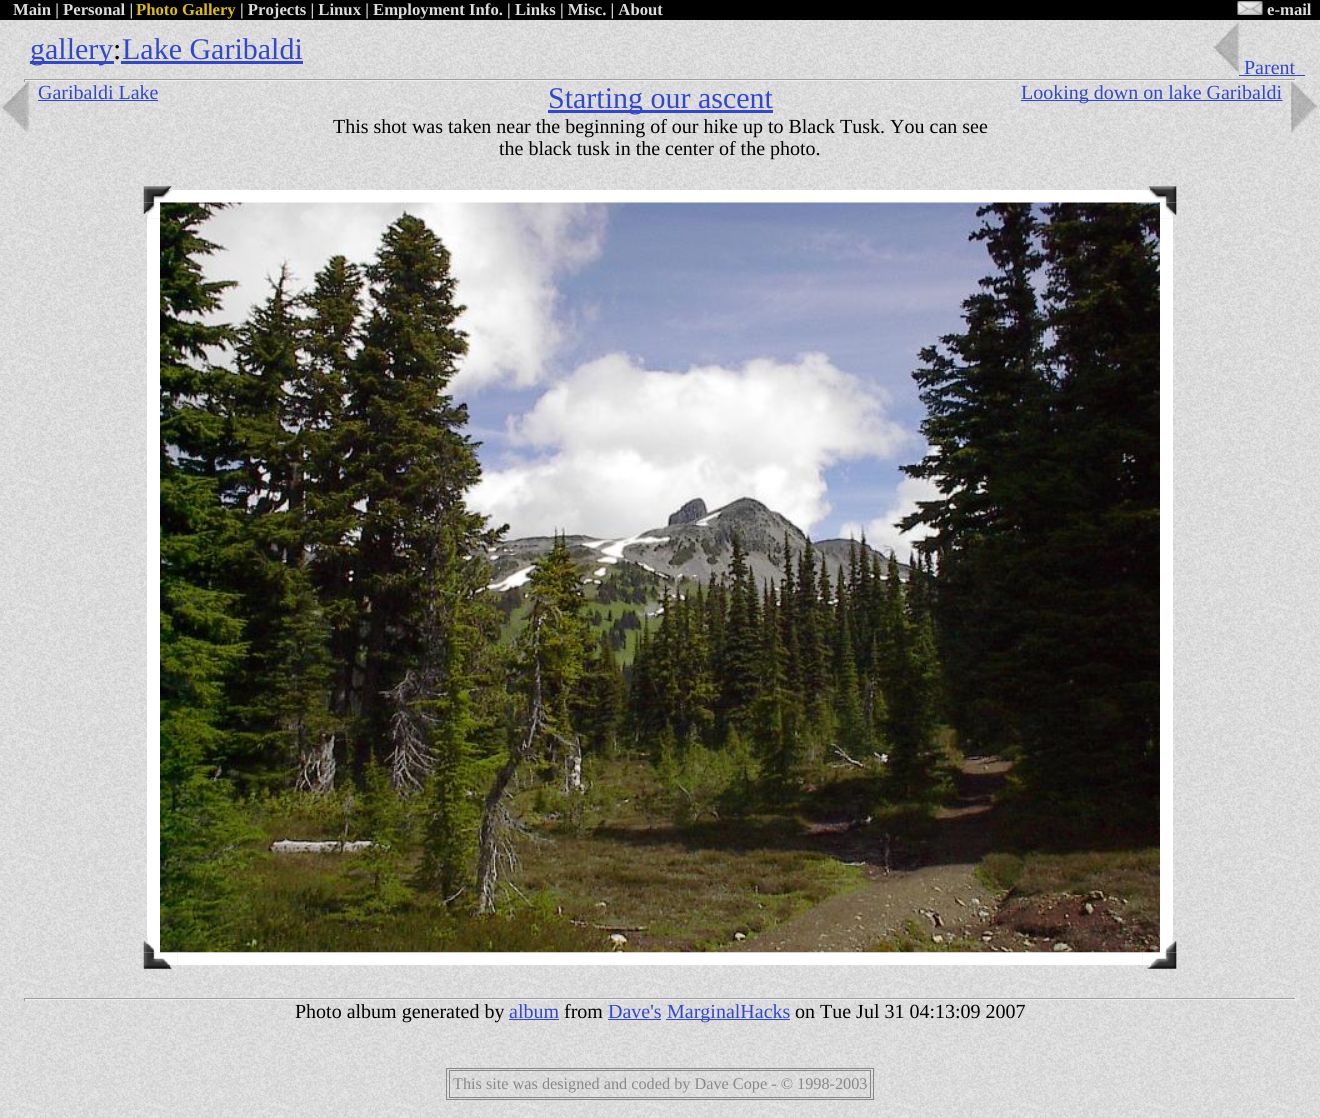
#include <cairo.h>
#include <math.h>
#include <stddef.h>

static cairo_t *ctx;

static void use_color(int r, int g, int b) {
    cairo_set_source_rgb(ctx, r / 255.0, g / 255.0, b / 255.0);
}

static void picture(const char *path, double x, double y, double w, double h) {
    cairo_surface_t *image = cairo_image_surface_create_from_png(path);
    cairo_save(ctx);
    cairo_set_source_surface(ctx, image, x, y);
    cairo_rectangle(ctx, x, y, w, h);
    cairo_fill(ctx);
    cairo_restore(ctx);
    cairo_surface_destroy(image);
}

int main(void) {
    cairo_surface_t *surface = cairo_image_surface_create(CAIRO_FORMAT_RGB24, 1320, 1118);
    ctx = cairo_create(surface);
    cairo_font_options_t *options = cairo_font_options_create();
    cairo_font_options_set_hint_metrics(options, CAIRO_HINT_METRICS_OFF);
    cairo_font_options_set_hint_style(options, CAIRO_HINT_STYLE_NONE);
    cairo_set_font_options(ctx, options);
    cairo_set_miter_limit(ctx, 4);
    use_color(255, 255, 255);
    cairo_paint(ctx);
    picture("img1.png", 0, 20, 1320, 1098);
    use_color(0, 0, 0);
    cairo_rectangle(ctx, 0, 0, 1320, 20);
    cairo_fill(ctx);
    cairo_select_font_face(ctx, "Liberation Serif", CAIRO_FONT_SLANT_NORMAL, CAIRO_FONT_WEIGHT_BOLD);
    cairo_set_font_size(ctx, 16.7);
    use_color(221, 221, 221);
    cairo_move_to(ctx, 13, 15);
    cairo_show_text(ctx, "Main | Personal |");
    use_color(224, 190, 0);
    cairo_move_to(ctx, 136, 15);
    cairo_show_text(ctx, "Photo Gallery");
    use_color(221, 221, 221);
    cairo_move_to(ctx, 240, 15);
    cairo_show_text(ctx, "| Projects | Linux | Employment Info. | Links | Misc. | About");
    picture("img2.png", 1237, 1, 26, 14);
    cairo_move_to(ctx, 1267, 15);
    cairo_show_text(ctx, "e-mail");
    use_color(51, 72, 200);
    cairo_rectangle(ctx, 30, 61, 84, 3);
    cairo_fill(ctx);
    cairo_select_font_face(ctx, "Liberation Serif", CAIRO_FONT_SLANT_NORMAL, CAIRO_FONT_WEIGHT_NORMAL);
    cairo_set_font_size(ctx, 30);
    cairo_move_to(ctx, 30, 59);
    cairo_show_text(ctx, "gallery");
    use_color(0, 0, 0);
    cairo_move_to(ctx, 113, 59);
    cairo_show_text(ctx, ":");
    use_color(51, 72, 200);
    cairo_rectangle(ctx, 121, 61, 182, 3);
    cairo_fill(ctx);
    cairo_move_to(ctx, 122, 59);
    cairo_show_text(ctx, "Lake Garibaldi");
    picture("img3.png", 1213, 22, 26, 50);
    cairo_set_font_size(ctx, 20);
    cairo_move_to(ctx, 1244, 74);
    cairo_show_text(ctx, "Parent");
    cairo_rectangle(ctx, 1239, 75, 66, 1);
    cairo_fill(ctx);
    use_color(159, 159, 159);
    cairo_rectangle(ctx, 24, 79, 1272, 1);
    cairo_fill(ctx);
    use_color(51, 72, 200);
    cairo_rectangle(ctx, 1021, 100, 262, 1);
    cairo_fill(ctx);
    cairo_move_to(ctx, 1021, 99);
    cairo_show_text(ctx, "Looking down on lake Garibaldi");
    picture("img5.png", 1282, 81, 38, 53);
    use_color(238, 238, 238);
    cairo_rectangle(ctx, 1295, 79, 1, 3);
    cairo_fill(ctx);
    cairo_rectangle(ctx, 24, 80, 1272, 1);
    cairo_fill(ctx);
    picture("img4.png", 0, 81, 38, 53);
    use_color(159, 159, 159);
    cairo_rectangle(ctx, 24, 79, 1, 3);
    cairo_fill(ctx);
    use_color(51, 72, 200);
    cairo_move_to(ctx, 38, 99);
    cairo_show_text(ctx, "Garibaldi Lake");
    cairo_rectangle(ctx, 38, 100, 120, 1);
    cairo_fill(ctx);
    cairo_rectangle(ctx, 548, 110, 225, 3);
    cairo_fill(ctx);
    cairo_set_font_size(ctx, 30);
    cairo_move_to(ctx, 548, 108);
    cairo_show_text(ctx, "Starting our ascent");
    cairo_set_font_size(ctx, 20);
    use_color(0, 0, 0);
    cairo_move_to(ctx, 333, 133);
    cairo_show_text(ctx, "This shot was taken near the beginning of our hike up to Black Tusk. You can see");
    cairo_move_to(ctx, 499, 155);
    cairo_show_text(ctx, "the black tusk in the center of the photo.");
    picture("img6.png", 143, 186, 35, 17);
    use_color(255, 255, 255);
    cairo_rectangle(ctx, 177, 190, 966, 13);
    cairo_fill(ctx);
    picture("img7.png", 1143, 186, 34, 17);
    picture("img8.png", 143, 202, 17, 17);
    picture("img9.png", 160, 202, 1000, 751);
    picture("img10.png", 1160, 202, 17, 17);
    cairo_rectangle(ctx, 147, 219, 13, 718);
    cairo_fill(ctx);
    cairo_rectangle(ctx, 1160, 219, 13, 718);
    cairo_fill(ctx);
    picture("img11.png", 143, 937, 17, 16);
    picture("img12.png", 1160, 937, 17, 16);
    picture("img13.png", 143, 952, 35, 17);
    picture("img14.png", 177, 952, 966, 14);
    picture("img15.png", 1142, 952, 35, 17);
    use_color(159, 159, 159);
    cairo_rectangle(ctx, 24, 998, 1272, 1);
    cairo_fill(ctx);
    use_color(238, 238, 238);
    cairo_rectangle(ctx, 1295, 998, 1, 3);
    cairo_fill(ctx);
    cairo_rectangle(ctx, 24, 999, 1272, 1);
    cairo_fill(ctx);
    use_color(159, 159, 159);
    cairo_rectangle(ctx, 24, 998, 1, 3);
    cairo_fill(ctx);
    use_color(0, 0, 0);
    cairo_move_to(ctx, 295, 1018);
    cairo_show_text(ctx, "Photo album generated by");
    use_color(51, 72, 200);
    cairo_move_to(ctx, 509, 1018);
    cairo_show_text(ctx, "album");
    cairo_rectangle(ctx, 509, 1019, 50, 1);
    cairo_fill(ctx);
    use_color(0, 0, 0);
    cairo_move_to(ctx, 564, 1018);
    cairo_show_text(ctx, "from");
    use_color(51, 72, 200);
    cairo_move_to(ctx, 608, 1018);
    cairo_show_text(ctx, "Dave's");
    cairo_rectangle(ctx, 608, 1019, 53, 1);
    cairo_fill(ctx);
    cairo_rectangle(ctx, 666, 1019, 124, 1);
    cairo_fill(ctx);
    cairo_move_to(ctx, 667, 1018);
    cairo_show_text(ctx, "MarginalHacks");
    use_color(0, 0, 0);
    cairo_move_to(ctx, 795, 1018);
    cairo_show_text(ctx, "on Tue Jul 31 04:13:09 2007");
    cairo_rectangle(ctx, 446.5, 1068.5, 427, 31);
    use_color(136, 136, 136);
    cairo_set_line_width(ctx, 1);
    cairo_stroke(ctx);
    cairo_rectangle(ctx, 449.5, 1070.5, 421, 27);
    cairo_stroke(ctx);
    cairo_set_font_size(ctx, 16.25);
    cairo_move_to(ctx, 453, 1089);
    cairo_show_text(ctx, "This site was designed and coded by Dave Cope - © 1998-2003");
    cairo_surface_write_to_png(surface, "result.png");
    cairo_font_options_destroy(options);
    cairo_destroy(ctx);
    cairo_surface_destroy(surface);
    return 0;
}
